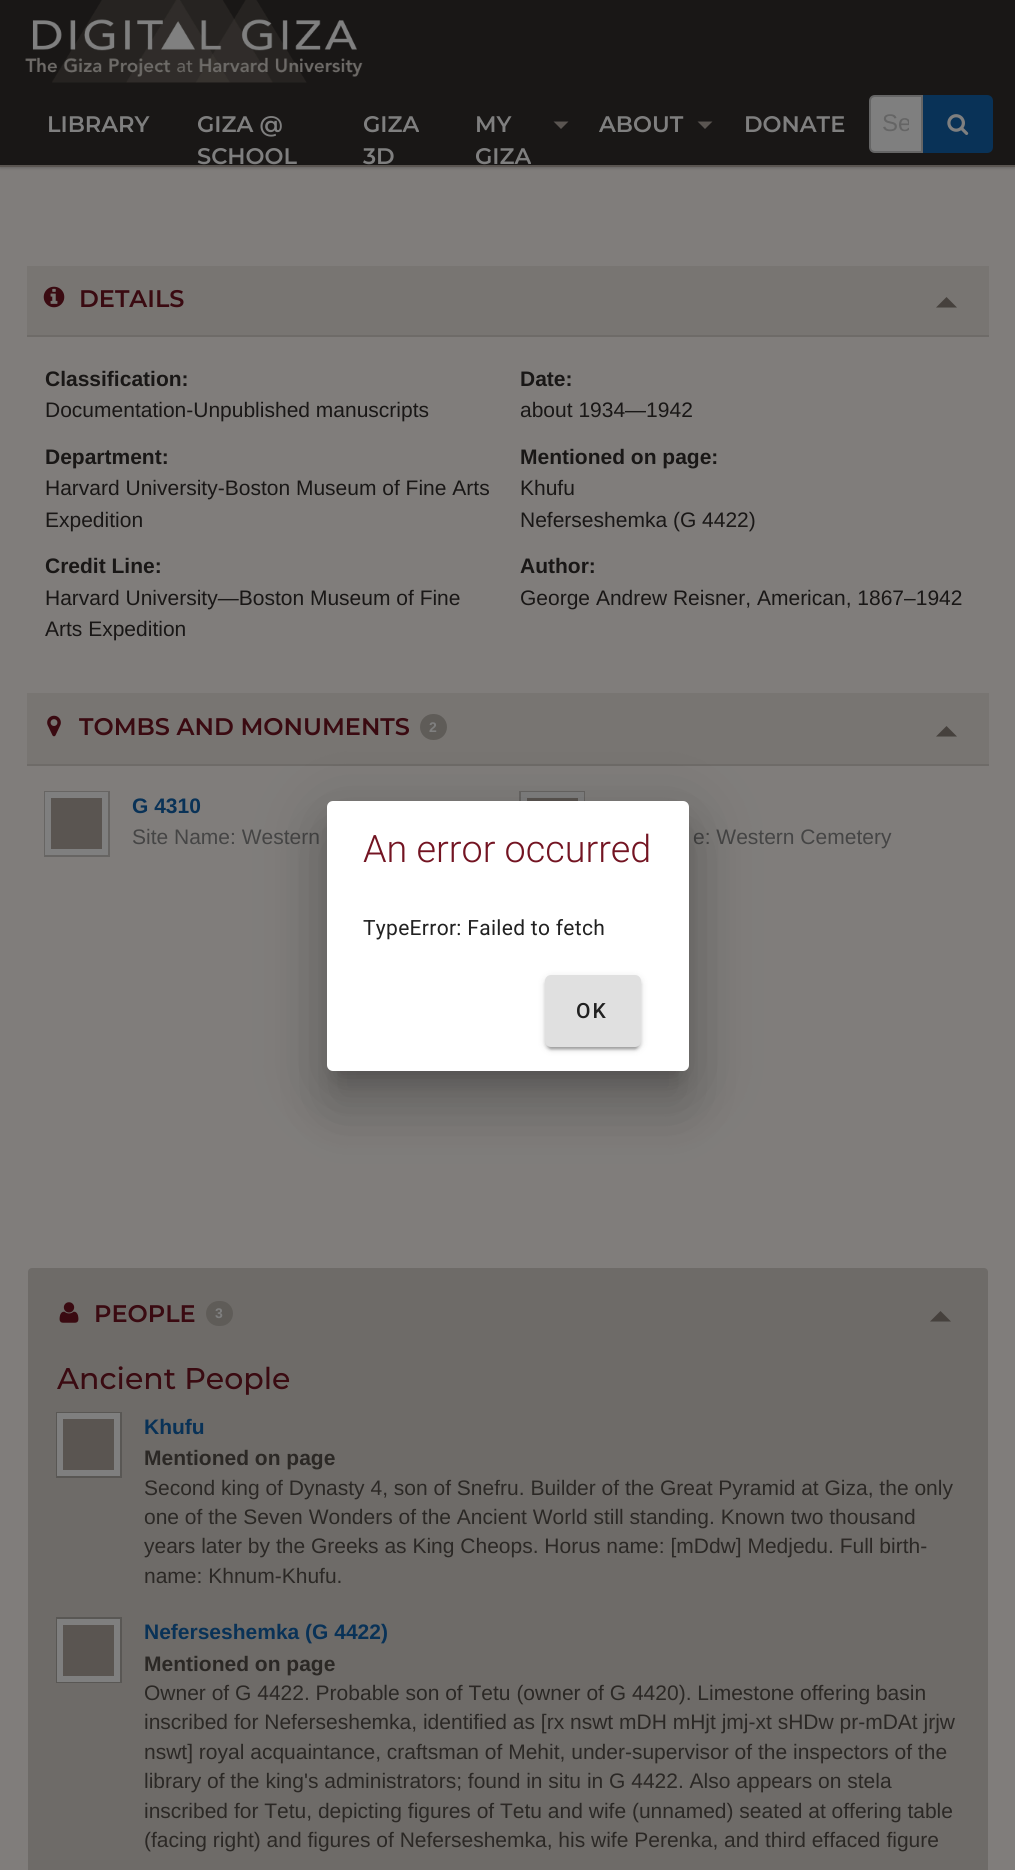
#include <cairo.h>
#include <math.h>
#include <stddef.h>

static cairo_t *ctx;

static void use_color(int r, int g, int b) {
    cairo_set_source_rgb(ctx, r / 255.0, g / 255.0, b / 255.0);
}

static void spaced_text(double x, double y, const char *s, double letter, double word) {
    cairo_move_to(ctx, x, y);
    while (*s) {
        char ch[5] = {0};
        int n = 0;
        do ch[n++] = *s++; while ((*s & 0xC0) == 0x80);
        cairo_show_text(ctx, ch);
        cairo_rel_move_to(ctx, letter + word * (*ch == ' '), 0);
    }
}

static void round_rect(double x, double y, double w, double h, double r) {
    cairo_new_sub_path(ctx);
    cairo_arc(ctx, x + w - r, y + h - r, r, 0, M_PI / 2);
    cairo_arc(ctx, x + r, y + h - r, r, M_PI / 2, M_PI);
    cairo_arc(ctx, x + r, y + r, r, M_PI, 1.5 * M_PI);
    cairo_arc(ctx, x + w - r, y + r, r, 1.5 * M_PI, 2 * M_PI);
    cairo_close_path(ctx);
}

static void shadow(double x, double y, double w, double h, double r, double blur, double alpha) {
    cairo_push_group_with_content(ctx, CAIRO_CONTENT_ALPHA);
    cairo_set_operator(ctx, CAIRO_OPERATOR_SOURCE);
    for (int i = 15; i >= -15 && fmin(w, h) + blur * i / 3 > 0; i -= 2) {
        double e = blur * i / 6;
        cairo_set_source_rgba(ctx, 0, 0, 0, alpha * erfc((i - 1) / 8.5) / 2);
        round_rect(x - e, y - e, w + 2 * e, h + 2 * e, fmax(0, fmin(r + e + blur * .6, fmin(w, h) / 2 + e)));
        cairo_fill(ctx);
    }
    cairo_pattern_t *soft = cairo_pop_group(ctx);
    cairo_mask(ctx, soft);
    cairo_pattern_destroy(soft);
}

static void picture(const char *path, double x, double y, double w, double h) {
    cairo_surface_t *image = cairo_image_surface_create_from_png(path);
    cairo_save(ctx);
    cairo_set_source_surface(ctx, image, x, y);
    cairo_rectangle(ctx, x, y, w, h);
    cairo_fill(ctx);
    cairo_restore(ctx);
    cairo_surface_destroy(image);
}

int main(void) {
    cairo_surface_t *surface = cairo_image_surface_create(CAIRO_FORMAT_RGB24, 1015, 1870);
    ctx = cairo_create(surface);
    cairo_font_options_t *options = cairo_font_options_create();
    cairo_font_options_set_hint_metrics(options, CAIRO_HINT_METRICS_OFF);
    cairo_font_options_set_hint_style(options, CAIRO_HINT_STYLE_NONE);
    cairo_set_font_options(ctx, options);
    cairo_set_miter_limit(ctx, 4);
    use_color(128, 125, 123);
    cairo_paint(ctx);
    use_color(0, 0, 0);
    shadow(0, 2, 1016, 166, 0, 1.5, 0.2);
    use_color(25, 23, 22);
    cairo_rectangle(ctx, 0, 0, 1015, 165);
    cairo_fill(ctx);
    use_color(90, 85, 81);
    cairo_rectangle(ctx, 0, 165, 1015, 2);
    cairo_fill(ctx);
    picture("img1.png", 25, 0, 338, 83);
    cairo_select_font_face(ctx, "Montserrat SemiBold", CAIRO_FONT_SLANT_NORMAL, CAIRO_FONT_WEIGHT_NORMAL);
    cairo_set_font_size(ctx, 22.5);
    use_color(127, 127, 127);
    cairo_move_to(ctx, 47, 132);
    cairo_show_text(ctx, "LIBRARY");
    cairo_move_to(ctx, 197, 132);
    cairo_show_text(ctx, "GIZA @");
    cairo_move_to(ctx, 197, 164);
    cairo_show_text(ctx, "SCHOOL");
    cairo_move_to(ctx, 363, 132);
    cairo_show_text(ctx, "GIZA");
    cairo_move_to(ctx, 363, 164);
    cairo_show_text(ctx, "3D");
    cairo_move_to(ctx, 475, 132);
    cairo_show_text(ctx, "MY");
    use_color(90, 85, 81);
    cairo_new_path(ctx);
    cairo_move_to(ctx, 553.5, 121.5);
    cairo_line_to(ctx, 568.5, 121.5);
    cairo_line_to(ctx, 561, 129);
    cairo_close_path(ctx);
    cairo_fill(ctx);
    use_color(127, 127, 127);
    cairo_move_to(ctx, 475, 164);
    cairo_show_text(ctx, "GIZA");
    cairo_move_to(ctx, 599, 132);
    cairo_show_text(ctx, "ABOUT");
    use_color(90, 85, 81);
    cairo_new_path(ctx);
    cairo_move_to(ctx, 697.5, 121.5);
    cairo_line_to(ctx, 712.5, 121.5);
    cairo_line_to(ctx, 705, 129);
    cairo_close_path(ctx);
    cairo_fill(ctx);
    use_color(127, 127, 127);
    cairo_move_to(ctx, 744, 132);
    cairo_show_text(ctx, "DONATE");
    cairo_new_path(ctx);
    cairo_move_to(ctx, 875, 96);
    cairo_line_to(ctx, 922, 96);
    cairo_line_to(ctx, 922, 152);
    cairo_line_to(ctx, 875, 152);
    cairo_curve_to(ctx, 872, 152, 870, 150, 870, 147);
    cairo_line_to(ctx, 870, 101);
    cairo_curve_to(ctx, 870, 98, 872, 96, 875, 96);
    cairo_close_path(ctx);
    cairo_fill_preserve(ctx);
    use_color(101, 101, 101);
    cairo_stroke(ctx);
    cairo_save(ctx);
    cairo_rectangle(ctx, 882, 111, 27, 27);
    cairo_clip(ctx);
    cairo_select_font_face(ctx, "Liberation Sans", CAIRO_FONT_SLANT_NORMAL, CAIRO_FONT_WEIGHT_NORMAL);
    cairo_set_font_size(ctx, 24);
    cairo_move_to(ctx, 882, 131);
    cairo_show_text(ctx, "Se");
    cairo_restore(ctx);
    use_color(9, 50, 87);
    cairo_new_path(ctx);
    cairo_move_to(ctx, 923, 95);
    cairo_line_to(ctx, 987, 95);
    cairo_curve_to(ctx, 990.5, 95, 993, 97.5, 993, 101);
    cairo_line_to(ctx, 993, 147);
    cairo_curve_to(ctx, 993, 150.5, 990.5, 153, 987, 153);
    cairo_line_to(ctx, 923, 153);
    cairo_close_path(ctx);
    cairo_fill(ctx);
    picture("img2.png", 947, 114, 22, 21);
    use_color(120, 117, 114);
    cairo_rectangle(ctx, 27, 266, 962, 69);
    cairo_fill(ctx);
    use_color(110, 107, 104);
    cairo_rectangle(ctx, 27, 335, 962, 2);
    cairo_fill(ctx);
    picture("img3.png", 43, 286, 22, 22);
    cairo_set_font_size(ctx, 24);
    use_color(58, 10, 17);
    cairo_move_to(ctx, 79, 307);
    cairo_show_text(ctx, "DETAILS");
    use_color(70, 65, 61);
    cairo_new_path(ctx);
    cairo_move_to(ctx, 957, 307.5);
    cairo_line_to(ctx, 936, 307.5);
    cairo_line_to(ctx, 946.5, 297);
    cairo_close_path(ctx);
    cairo_fill(ctx);
    cairo_select_font_face(ctx, "Liberation Sans", CAIRO_FONT_SLANT_NORMAL, CAIRO_FONT_WEIGHT_BOLD);
    cairo_set_font_size(ctx, 21);
    use_color(25, 23, 22);
    cairo_move_to(ctx, 45, 386);
    cairo_show_text(ctx, "Classification:");
    cairo_select_font_face(ctx, "Liberation Sans", CAIRO_FONT_SLANT_NORMAL, CAIRO_FONT_WEIGHT_NORMAL);
    cairo_move_to(ctx, 45, 417);
    cairo_show_text(ctx, "Documentation-Unpublished manuscripts");
    cairo_select_font_face(ctx, "Liberation Sans", CAIRO_FONT_SLANT_NORMAL, CAIRO_FONT_WEIGHT_BOLD);
    cairo_move_to(ctx, 520, 386);
    cairo_show_text(ctx, "Date:");
    cairo_select_font_face(ctx, "Liberation Sans", CAIRO_FONT_SLANT_NORMAL, CAIRO_FONT_WEIGHT_NORMAL);
    cairo_move_to(ctx, 520, 417);
    cairo_show_text(ctx, "about 1934—1942");
    cairo_select_font_face(ctx, "Liberation Sans", CAIRO_FONT_SLANT_NORMAL, CAIRO_FONT_WEIGHT_BOLD);
    cairo_move_to(ctx, 45, 464);
    cairo_show_text(ctx, "Department:");
    cairo_select_font_face(ctx, "Liberation Sans", CAIRO_FONT_SLANT_NORMAL, CAIRO_FONT_WEIGHT_NORMAL);
    cairo_move_to(ctx, 45, 495);
    cairo_show_text(ctx, "Harvard University-Boston Museum of Fine Arts");
    cairo_move_to(ctx, 45, 527);
    cairo_show_text(ctx, "Expedition");
    cairo_select_font_face(ctx, "Liberation Sans", CAIRO_FONT_SLANT_NORMAL, CAIRO_FONT_WEIGHT_BOLD);
    cairo_move_to(ctx, 520, 464);
    cairo_show_text(ctx, "Mentioned on page:");
    cairo_select_font_face(ctx, "Liberation Sans", CAIRO_FONT_SLANT_NORMAL, CAIRO_FONT_WEIGHT_NORMAL);
    cairo_move_to(ctx, 520, 495);
    cairo_show_text(ctx, "Khufu");
    cairo_move_to(ctx, 520, 527);
    cairo_show_text(ctx, "Neferseshemka (G 4422)");
    cairo_select_font_face(ctx, "Liberation Sans", CAIRO_FONT_SLANT_NORMAL, CAIRO_FONT_WEIGHT_BOLD);
    cairo_move_to(ctx, 45, 573);
    cairo_show_text(ctx, "Credit Line:");
    cairo_select_font_face(ctx, "Liberation Sans", CAIRO_FONT_SLANT_NORMAL, CAIRO_FONT_WEIGHT_NORMAL);
    cairo_move_to(ctx, 45, 605);
    cairo_show_text(ctx, "Harvard University—Boston Museum of Fine");
    cairo_move_to(ctx, 45, 636);
    cairo_show_text(ctx, "Arts Expedition");
    cairo_select_font_face(ctx, "Liberation Sans", CAIRO_FONT_SLANT_NORMAL, CAIRO_FONT_WEIGHT_BOLD);
    cairo_move_to(ctx, 520, 573);
    cairo_show_text(ctx, "Author:");
    cairo_select_font_face(ctx, "Liberation Sans", CAIRO_FONT_SLANT_NORMAL, CAIRO_FONT_WEIGHT_NORMAL);
    cairo_move_to(ctx, 520, 605);
    cairo_show_text(ctx, "George Andrew Reisner, American, 1867–1942");
    use_color(120, 117, 114);
    cairo_rectangle(ctx, 27, 693, 962, 71);
    cairo_fill(ctx);
    use_color(110, 107, 104);
    cairo_rectangle(ctx, 27, 764, 962, 2);
    cairo_fill(ctx);
    picture("img4.png", 47, 715, 14, 22);
    cairo_select_font_face(ctx, "Montserrat SemiBold", CAIRO_FONT_SLANT_NORMAL, CAIRO_FONT_WEIGHT_NORMAL);
    cairo_set_font_size(ctx, 24);
    use_color(58, 10, 17);
    cairo_move_to(ctx, 79, 735);
    cairo_show_text(ctx, "TOMBS AND MONUMENTS");
    use_color(95, 92, 88);
    round_rect(420, 714, 27, 26, 13);
    cairo_fill(ctx);
    cairo_select_font_face(ctx, "Liberation Sans", CAIRO_FONT_SLANT_NORMAL, CAIRO_FONT_WEIGHT_BOLD);
    cairo_set_font_size(ctx, 14);
    use_color(127, 127, 127);
    cairo_move_to(ctx, 429, 732);
    cairo_show_text(ctx, "2");
    use_color(70, 65, 61);
    cairo_new_path(ctx);
    cairo_move_to(ctx, 957, 736.5);
    cairo_line_to(ctx, 936, 736.5);
    cairo_line_to(ctx, 946.5, 726);
    cairo_close_path(ctx);
    cairo_fill(ctx);
    cairo_rectangle(ctx, 45, 792, 64, 64);
    use_color(103, 101, 99);
    cairo_stroke(ctx);
    use_color(90, 85, 81);
    cairo_rectangle(ctx, 48, 795, 57, 57);
    cairo_fill_preserve(ctx);
    use_color(127, 127, 127);
    cairo_set_line_width(ctx, 6);
    cairo_stroke(ctx);
    cairo_set_font_size(ctx, 21);
    use_color(9, 50, 87);
    cairo_move_to(ctx, 132, 813);
    cairo_show_text(ctx, "G 4310");
    cairo_select_font_face(ctx, "Liberation Sans", CAIRO_FONT_SLANT_NORMAL, CAIRO_FONT_WEIGHT_NORMAL);
    use_color(69, 69, 69);
    cairo_move_to(ctx, 132, 844);
    cairo_show_text(ctx, "Site Name: Western");
    cairo_rectangle(ctx, 520, 792, 64, 64);
    use_color(103, 101, 99);
    cairo_set_line_width(ctx, 2);
    cairo_stroke(ctx);
    use_color(90, 85, 81);
    cairo_rectangle(ctx, 527, 798, 51, 3);
    cairo_fill(ctx);
    cairo_rectangle(ctx, 524, 795, 57, 57);
    use_color(127, 127, 127);
    cairo_set_line_width(ctx, 6);
    cairo_stroke(ctx);
    use_color(69, 69, 69);
    cairo_move_to(ctx, 693, 844);
    cairo_show_text(ctx, "e: Western Cemetery");
    use_color(110, 107, 104);
    round_rect(25.5, 1265.5, 965, 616, 6.5);
    cairo_fill_preserve(ctx);
    use_color(128, 125, 123);
    cairo_set_line_width(ctx, 5);
    cairo_stroke(ctx);
    picture("img5.png", 59, 1302, 20, 21);
    cairo_select_font_face(ctx, "Montserrat SemiBold", CAIRO_FONT_SLANT_NORMAL, CAIRO_FONT_WEIGHT_NORMAL);
    cairo_set_font_size(ctx, 24);
    use_color(58, 10, 17);
    cairo_move_to(ctx, 94, 1322);
    cairo_show_text(ctx, "PEOPLE");
    use_color(95, 92, 88);
    round_rect(206, 1301, 27, 25, 12.5);
    cairo_fill(ctx);
    cairo_select_font_face(ctx, "Liberation Sans", CAIRO_FONT_SLANT_NORMAL, CAIRO_FONT_WEIGHT_BOLD);
    cairo_set_font_size(ctx, 14);
    use_color(127, 127, 127);
    cairo_move_to(ctx, 215, 1318);
    cairo_show_text(ctx, "3");
    use_color(70, 65, 61);
    cairo_new_path(ctx);
    cairo_move_to(ctx, 951, 1321.5);
    cairo_line_to(ctx, 930, 1321.5);
    cairo_line_to(ctx, 940.5, 1311);
    cairo_close_path(ctx);
    cairo_fill(ctx);
    cairo_select_font_face(ctx, "Montserrat Medium", CAIRO_FONT_SLANT_NORMAL, CAIRO_FONT_WEIGHT_NORMAL);
    cairo_set_font_size(ctx, 30);
    use_color(58, 10, 17);
    cairo_move_to(ctx, 57, 1389);
    cairo_show_text(ctx, "Ancient People");
    cairo_rectangle(ctx, 57, 1413, 64, 64);
    use_color(89, 87, 84);
    cairo_set_line_width(ctx, 2);
    cairo_stroke(ctx);
    use_color(90, 85, 81);
    cairo_rectangle(ctx, 60, 1416, 57, 57);
    cairo_fill_preserve(ctx);
    use_color(127, 127, 127);
    cairo_set_line_width(ctx, 6);
    cairo_stroke(ctx);
    cairo_select_font_face(ctx, "Liberation Sans", CAIRO_FONT_SLANT_NORMAL, CAIRO_FONT_WEIGHT_BOLD);
    cairo_set_font_size(ctx, 21);
    use_color(9, 50, 87);
    cairo_move_to(ctx, 144, 1434);
    cairo_show_text(ctx, "Khufu");
    use_color(43, 40, 37);
    cairo_move_to(ctx, 144, 1465);
    cairo_show_text(ctx, "Mentioned on page");
    cairo_select_font_face(ctx, "Liberation Sans", CAIRO_FONT_SLANT_NORMAL, CAIRO_FONT_WEIGHT_NORMAL);
    cairo_move_to(ctx, 144, 1495);
    cairo_show_text(ctx, "Second king of Dynasty 4, son of Snefru. Builder of the Great Pyramid at Giza, the only");
    cairo_move_to(ctx, 144, 1524);
    cairo_show_text(ctx, "one of the Seven Wonders of the Ancient World still standing. Known two thousand");
    cairo_move_to(ctx, 144, 1553);
    cairo_show_text(ctx, "years later by the Greeks as King Cheops. Horus name: [mDdw] Medjedu. Full birth-");
    cairo_move_to(ctx, 144, 1583);
    cairo_show_text(ctx, "name: Khnum-Khufu.");
    cairo_rectangle(ctx, 57, 1618, 64, 64);
    use_color(89, 87, 84);
    cairo_set_line_width(ctx, 2);
    cairo_stroke(ctx);
    use_color(90, 85, 81);
    cairo_rectangle(ctx, 60, 1622, 57, 57);
    cairo_fill_preserve(ctx);
    use_color(127, 127, 127);
    cairo_set_line_width(ctx, 6);
    cairo_stroke(ctx);
    cairo_select_font_face(ctx, "Liberation Sans", CAIRO_FONT_SLANT_NORMAL, CAIRO_FONT_WEIGHT_BOLD);
    use_color(9, 50, 87);
    cairo_move_to(ctx, 144, 1639);
    cairo_show_text(ctx, "Neferseshemka (G 4422)");
    use_color(43, 40, 37);
    cairo_move_to(ctx, 144, 1671);
    cairo_show_text(ctx, "Mentioned on page");
    cairo_select_font_face(ctx, "Liberation Sans", CAIRO_FONT_SLANT_NORMAL, CAIRO_FONT_WEIGHT_NORMAL);
    cairo_move_to(ctx, 144, 1700);
    cairo_show_text(ctx, "Owner of G 4422. Probable son of Tetu (owner of G 4420). Limestone offering basin");
    cairo_move_to(ctx, 144, 1729);
    cairo_show_text(ctx, "inscribed for Neferseshemka, identified as [rx nswt mDH mHjt jmj-xt sHDw pr-mDAt jrjw");
    cairo_move_to(ctx, 144, 1759);
    cairo_show_text(ctx, "nswt] royal acquaintance, craftsman of Mehit, under-supervisor of the inspectors of the");
    cairo_move_to(ctx, 144, 1788);
    cairo_show_text(ctx, "library of the king's administrators; found in situ in G 4422. Also appears on stela");
    cairo_move_to(ctx, 144, 1818);
    cairo_show_text(ctx, "inscribed for Tetu, depicting figures of Tetu and wife (unnamed) seated at offering table");
    cairo_move_to(ctx, 144, 1847);
    cairo_show_text(ctx, "(facing right) and figures of Neferseshemka, his wife Perenka, and third effaced figure");
    use_color(0, 0, 0);
    shadow(315, 803, 386, 294, 18, 34.5, 0.12);
    shadow(323, 833, 370, 279, 11, 28.5, 0.14);
    shadow(338, 828, 340, 249, 0, 11, 0.2);
    use_color(255, 255, 255);
    round_rect(327, 801, 362, 270, 6);
    cairo_fill(ctx);
    cairo_select_font_face(ctx, "Roboto Light", CAIRO_FONT_SLANT_NORMAL, CAIRO_FONT_WEIGHT_NORMAL);
    cairo_set_font_size(ctx, 37.75);
    use_color(115, 20, 34);
    cairo_move_to(ctx, 363, 862);
    cairo_show_text(ctx, "An error occurred");
    cairo_select_font_face(ctx, "Roboto", CAIRO_FONT_SLANT_NORMAL, CAIRO_FONT_WEIGHT_NORMAL);
    cairo_set_font_size(ctx, 21);
    use_color(33, 33, 33);
    spaced_text(363, 935, "TypeError: Failed to fetch", 0.3, 0);
    use_color(0, 0, 0);
    shadow(545, 977, 96, 72, 6, 4, 0.12);
    shadow(545, 978, 96, 72, 6, 1.5, 0.14);
    shadow(548, 983, 90, 66, 3, 1, 0.2);
    use_color(224, 224, 224);
    round_rect(545, 975, 96, 72, 6);
    cairo_fill(ctx);
    cairo_select_font_face(ctx, "Roboto Medium", CAIRO_FONT_SLANT_NORMAL, CAIRO_FONT_WEIGHT_NORMAL);
    use_color(33, 33, 33);
    spaced_text(576, 1018, "OK", 2, 0);
    cairo_surface_write_to_png(surface, "result.png");
    cairo_font_options_destroy(options);
    cairo_destroy(ctx);
    cairo_surface_destroy(surface);
    return 0;
}
